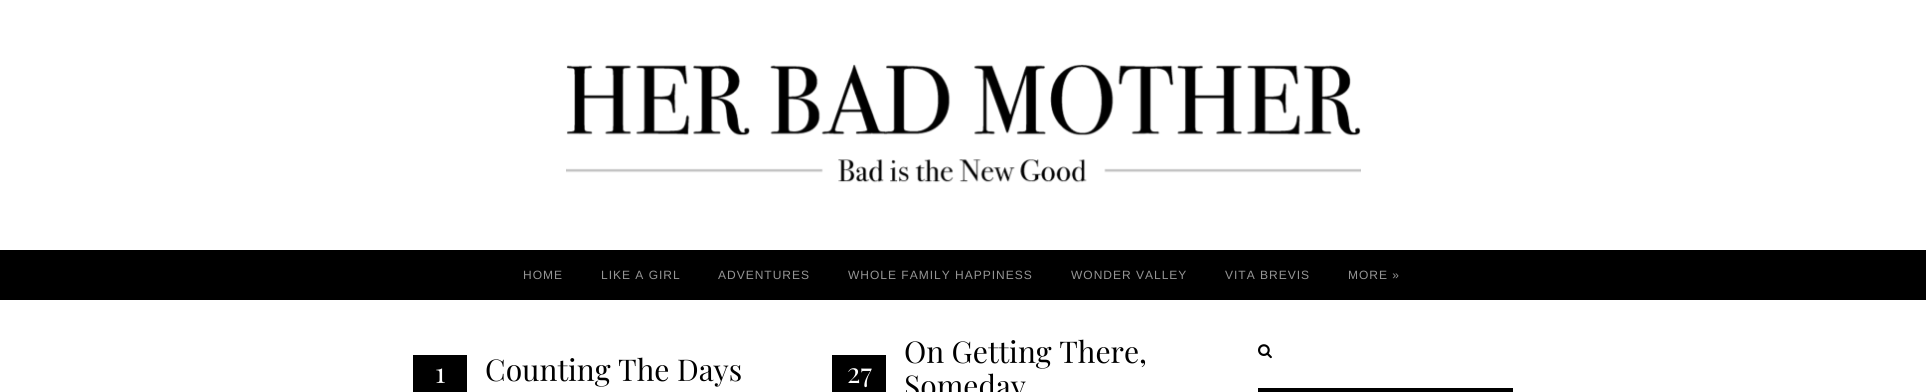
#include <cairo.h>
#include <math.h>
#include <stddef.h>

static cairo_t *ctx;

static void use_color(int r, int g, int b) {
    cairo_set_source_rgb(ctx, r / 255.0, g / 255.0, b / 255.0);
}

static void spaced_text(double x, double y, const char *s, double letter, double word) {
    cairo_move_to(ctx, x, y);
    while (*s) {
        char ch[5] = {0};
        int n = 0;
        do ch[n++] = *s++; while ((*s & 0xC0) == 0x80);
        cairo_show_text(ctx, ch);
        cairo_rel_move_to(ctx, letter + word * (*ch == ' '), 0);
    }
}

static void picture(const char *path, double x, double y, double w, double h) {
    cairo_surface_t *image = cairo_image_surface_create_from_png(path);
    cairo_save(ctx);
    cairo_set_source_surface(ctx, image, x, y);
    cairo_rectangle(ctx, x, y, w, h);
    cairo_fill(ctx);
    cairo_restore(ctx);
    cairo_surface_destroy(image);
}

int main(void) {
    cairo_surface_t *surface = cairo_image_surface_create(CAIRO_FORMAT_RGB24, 1926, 392);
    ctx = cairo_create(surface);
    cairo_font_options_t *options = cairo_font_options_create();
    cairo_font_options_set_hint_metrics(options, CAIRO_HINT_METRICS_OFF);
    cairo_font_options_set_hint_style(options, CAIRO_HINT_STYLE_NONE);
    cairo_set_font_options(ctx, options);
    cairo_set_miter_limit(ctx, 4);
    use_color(255, 255, 255);
    cairo_paint(ctx);
    picture("img1.png", 566, 64, 795, 119);
    use_color(0, 0, 0);
    cairo_rectangle(ctx, 0, 250, 1926, 50);
    cairo_fill(ctx);
    cairo_select_font_face(ctx, "Arimo", CAIRO_FONT_SLANT_NORMAL, CAIRO_FONT_WEIGHT_NORMAL);
    cairo_set_font_size(ctx, 12);
    use_color(149, 149, 149);
    spaced_text(523, 279, "HOME", 1, 0);
    spaced_text(601, 279, "LIKE A GIRL", 1, 0);
    spaced_text(718, 279, "ADVENTURES", 1, 0);
    spaced_text(848, 279, "WHOLE FAMILY HAPPINESS", 1, 0);
    spaced_text(1071, 279, "WONDER VALLEY", 1, 0);
    spaced_text(1225, 279, "VITA BREVIS", 1, 0);
    spaced_text(1348, 279, "MORE »", 1, 0);
    use_color(0, 0, 0);
    cairo_rectangle(ctx, 413, 355, 54, 37);
    cairo_fill(ctx);
    cairo_select_font_face(ctx, "Playfair Display", CAIRO_FONT_SLANT_NORMAL, CAIRO_FONT_WEIGHT_NORMAL);
    cairo_set_font_size(ctx, 28);
    use_color(255, 255, 255);
    cairo_move_to(ctx, 435, 383);
    cairo_show_text(ctx, "1");
    cairo_set_font_size(ctx, 30);
    use_color(0, 0, 0);
    cairo_move_to(ctx, 485, 381);
    cairo_show_text(ctx, "Counting The Days");
    cairo_rectangle(ctx, 832, 355, 54, 37);
    cairo_fill(ctx);
    cairo_set_font_size(ctx, 28);
    use_color(255, 255, 255);
    cairo_move_to(ctx, 847, 383);
    cairo_show_text(ctx, "27");
    cairo_set_font_size(ctx, 30);
    use_color(0, 0, 0);
    cairo_move_to(ctx, 904, 363);
    cairo_show_text(ctx, "On Getting There,");
    cairo_move_to(ctx, 904, 397);
    cairo_show_text(ctx, "Someday");
    picture("img2.png", 1258, 344, 14, 15);
    cairo_rectangle(ctx, 1258, 388, 255, 4);
    cairo_fill(ctx);
    cairo_surface_write_to_png(surface, "result.png");
    cairo_font_options_destroy(options);
    cairo_destroy(ctx);
    cairo_surface_destroy(surface);
    return 0;
}
